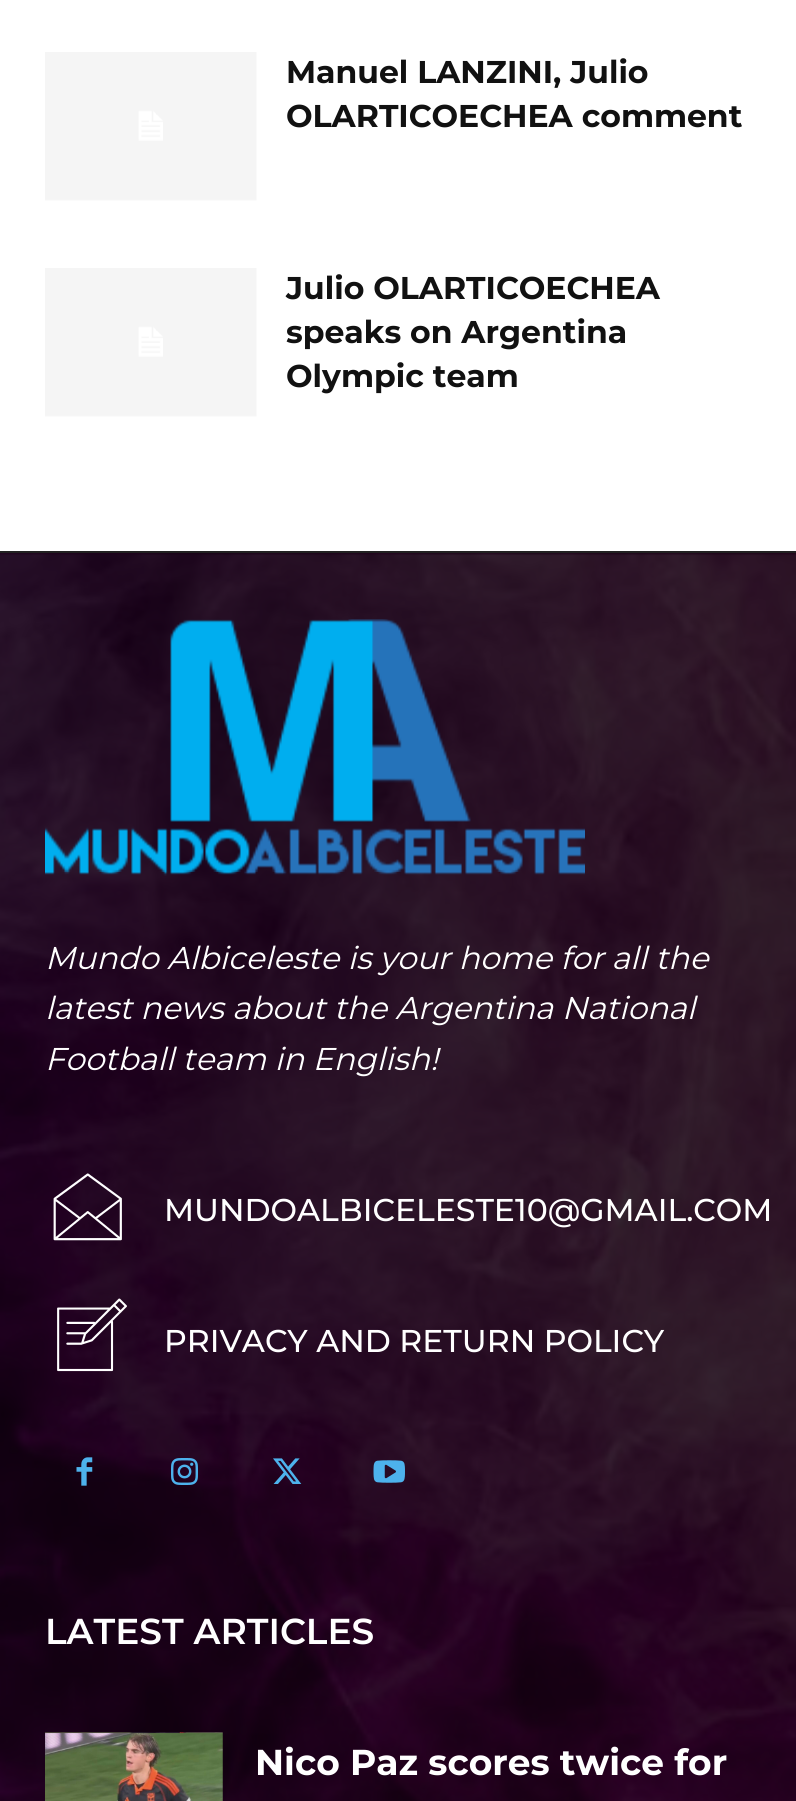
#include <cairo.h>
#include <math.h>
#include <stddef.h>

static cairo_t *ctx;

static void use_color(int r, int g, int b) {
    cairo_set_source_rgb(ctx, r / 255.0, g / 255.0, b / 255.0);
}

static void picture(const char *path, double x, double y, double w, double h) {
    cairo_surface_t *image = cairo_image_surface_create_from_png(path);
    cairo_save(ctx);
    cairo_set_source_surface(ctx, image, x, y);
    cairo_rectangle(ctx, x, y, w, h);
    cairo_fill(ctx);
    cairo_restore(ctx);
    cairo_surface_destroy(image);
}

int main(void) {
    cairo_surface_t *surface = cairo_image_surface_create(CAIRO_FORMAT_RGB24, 796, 1801);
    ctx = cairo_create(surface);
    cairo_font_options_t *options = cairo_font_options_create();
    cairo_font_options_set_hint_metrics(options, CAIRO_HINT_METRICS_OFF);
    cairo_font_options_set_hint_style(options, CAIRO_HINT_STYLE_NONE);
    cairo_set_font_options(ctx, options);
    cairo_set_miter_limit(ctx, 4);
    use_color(255, 255, 255);
    cairo_paint(ctx);
    picture("img1.png", 45, 52, 212, 149);
    cairo_select_font_face(ctx, "Montserrat", CAIRO_FONT_SLANT_NORMAL, CAIRO_FONT_WEIGHT_BOLD);
    cairo_set_font_size(ctx, 31.5);
    use_color(17, 17, 17);
    cairo_move_to(ctx, 286, 83);
    cairo_show_text(ctx, "Manuel LANZINI, Julio");
    cairo_move_to(ctx, 286, 127);
    cairo_show_text(ctx, "OLARTICOECHEA comment");
    picture("img1.png", 45, 268, 212, 149);
    cairo_move_to(ctx, 286, 299);
    cairo_show_text(ctx, "Julio OLARTICOECHEA");
    cairo_move_to(ctx, 286, 343);
    cairo_show_text(ctx, "speaks on Argentina");
    cairo_move_to(ctx, 286, 387);
    cairo_show_text(ctx, "Olympic team");
    picture("img2.png", 0, 553, 796, 1248);
    use_color(34, 34, 34);
    cairo_rectangle(ctx, 0, 551, 796, 2);
    cairo_fill(ctx);
    picture("img3.png", 45, 619, 540, 257);
    cairo_select_font_face(ctx, "Montserrat", CAIRO_FONT_SLANT_ITALIC, CAIRO_FONT_WEIGHT_NORMAL);
    use_color(255, 255, 255);
    cairo_move_to(ctx, 45, 969);
    cairo_show_text(ctx, "Mundo Albiceleste is your home for all the");
    cairo_move_to(ctx, 45, 1019);
    cairo_show_text(ctx, "latest news about the Argentina National");
    cairo_move_to(ctx, 45, 1070);
    cairo_show_text(ctx, "Football team in English!");
    picture("img4.png", 53, 1173, 69, 68);
    cairo_select_font_face(ctx, "Montserrat Medium", CAIRO_FONT_SLANT_NORMAL, CAIRO_FONT_WEIGHT_NORMAL);
    cairo_move_to(ctx, 164, 1221);
    cairo_show_text(ctx, "MUNDOALBICELESTE10@GMAIL.COM");
    picture("img5.png", 57, 1298, 70, 74);
    cairo_move_to(ctx, 164, 1352);
    cairo_show_text(ctx, "PRIVACY AND RETURN POLICY");
    picture("img6.png", 76, 1457, 17, 29);
    picture("img7.png", 171, 1458, 27, 27);
    picture("img8.png", 273, 1458, 29, 26);
    picture("img9.png", 373, 1460, 32, 23);
    cairo_select_font_face(ctx, "Montserrat SemiBold", CAIRO_FONT_SLANT_NORMAL, CAIRO_FONT_WEIGHT_NORMAL);
    cairo_set_font_size(ctx, 36);
    cairo_move_to(ctx, 45, 1644);
    cairo_show_text(ctx, "LATEST ARTICLES");
    picture("img10.png", 45, 1732, 178, 69);
    cairo_select_font_face(ctx, "Montserrat", CAIRO_FONT_SLANT_NORMAL, CAIRO_FONT_WEIGHT_BOLD);
    cairo_move_to(ctx, 255, 1775);
    cairo_show_text(ctx, "Nico Paz scores twice for");
    cairo_surface_write_to_png(surface, "result.png");
    cairo_font_options_destroy(options);
    cairo_destroy(ctx);
    cairo_surface_destroy(surface);
    return 0;
}
